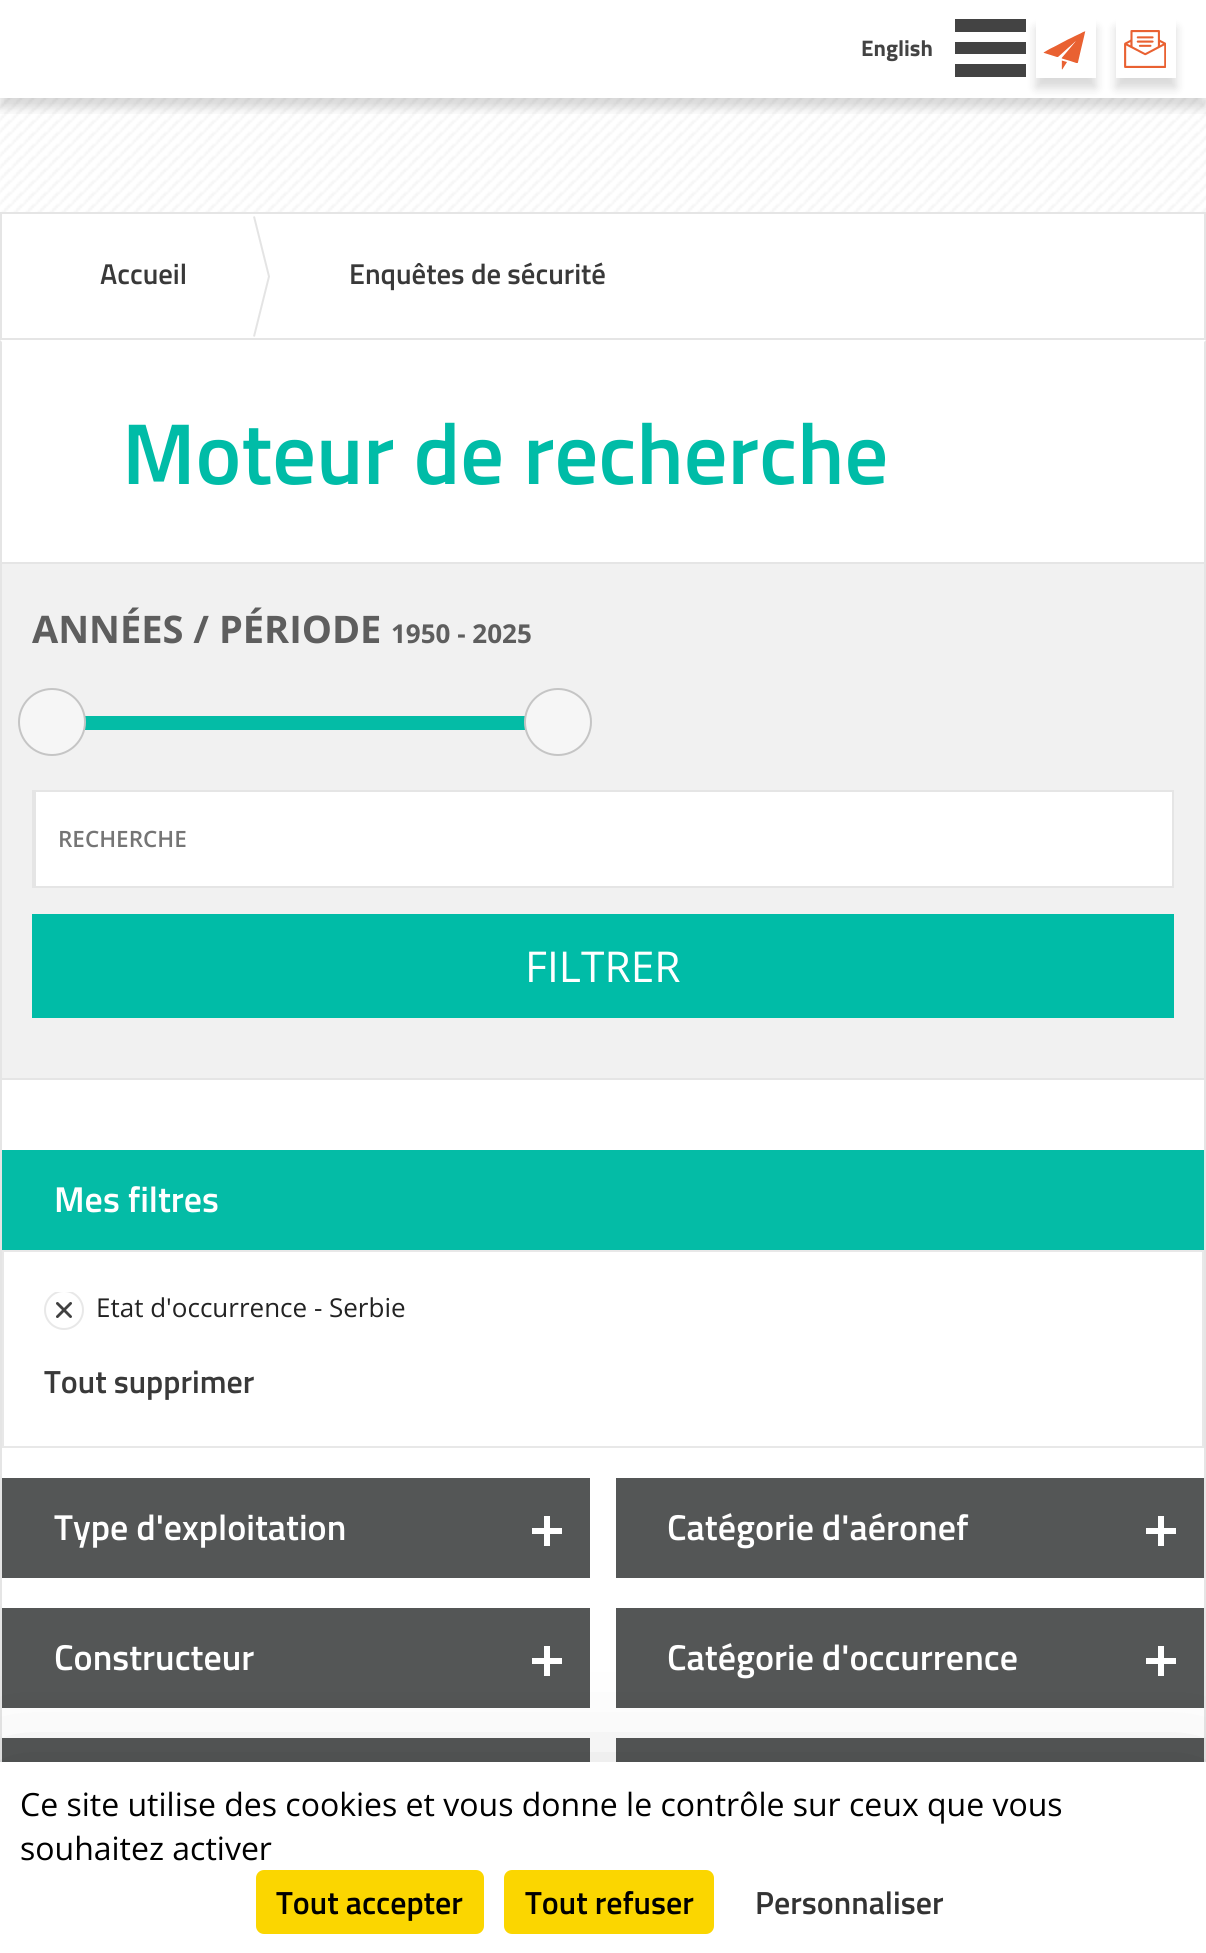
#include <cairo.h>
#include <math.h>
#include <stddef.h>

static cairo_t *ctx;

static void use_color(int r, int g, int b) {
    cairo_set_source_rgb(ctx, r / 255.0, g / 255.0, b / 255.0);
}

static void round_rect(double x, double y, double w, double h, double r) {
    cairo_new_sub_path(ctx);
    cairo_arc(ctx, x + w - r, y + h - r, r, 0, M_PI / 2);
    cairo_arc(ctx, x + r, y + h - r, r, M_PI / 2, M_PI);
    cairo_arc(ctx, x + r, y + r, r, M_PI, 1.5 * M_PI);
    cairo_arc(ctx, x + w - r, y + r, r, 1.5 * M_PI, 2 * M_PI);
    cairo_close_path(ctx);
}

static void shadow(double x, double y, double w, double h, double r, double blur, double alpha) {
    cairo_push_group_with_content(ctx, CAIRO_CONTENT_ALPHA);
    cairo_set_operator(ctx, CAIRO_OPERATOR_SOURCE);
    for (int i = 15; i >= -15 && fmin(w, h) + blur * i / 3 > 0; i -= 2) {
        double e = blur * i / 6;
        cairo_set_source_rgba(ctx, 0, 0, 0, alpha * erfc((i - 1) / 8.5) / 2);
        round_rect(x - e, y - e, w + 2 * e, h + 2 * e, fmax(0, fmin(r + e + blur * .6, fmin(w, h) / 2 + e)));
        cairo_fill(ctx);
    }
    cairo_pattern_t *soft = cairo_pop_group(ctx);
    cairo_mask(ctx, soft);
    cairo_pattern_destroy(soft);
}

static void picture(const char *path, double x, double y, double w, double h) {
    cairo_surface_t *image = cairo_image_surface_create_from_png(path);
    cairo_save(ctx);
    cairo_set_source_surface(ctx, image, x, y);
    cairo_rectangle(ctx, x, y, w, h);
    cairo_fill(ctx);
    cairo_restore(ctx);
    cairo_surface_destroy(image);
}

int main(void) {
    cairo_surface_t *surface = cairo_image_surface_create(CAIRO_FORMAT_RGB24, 1206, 1953);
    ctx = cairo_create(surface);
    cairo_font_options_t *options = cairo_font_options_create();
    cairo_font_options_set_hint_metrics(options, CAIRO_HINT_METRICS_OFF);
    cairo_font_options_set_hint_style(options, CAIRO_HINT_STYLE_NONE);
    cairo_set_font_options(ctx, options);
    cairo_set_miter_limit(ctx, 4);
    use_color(255, 255, 255);
    cairo_paint(ctx);
    picture("img1.png", 0, 98, 1206, 114);
    cairo_save(ctx);
    cairo_rectangle(ctx, 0, 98, 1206, 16);
    cairo_clip(ctx);
    use_color(0, 0, 0);
    shadow(0, 10, 1206, 98, 0, 5, 0.15);
    cairo_restore(ctx);
    cairo_select_font_face(ctx, "Titillium Web", CAIRO_FONT_SLANT_NORMAL, CAIRO_FONT_WEIGHT_BOLD);
    cairo_set_font_size(ctx, 22.5);
    use_color(67, 67, 67);
    cairo_move_to(ctx, 861, 56);
    cairo_show_text(ctx, "English");
    cairo_save(ctx);
    cairo_set_fill_rule(ctx, CAIRO_FILL_RULE_EVEN_ODD);
    cairo_new_path(ctx);
    cairo_move_to(ctx, 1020, 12);
    cairo_line_to(ctx, 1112, 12);
    cairo_line_to(ctx, 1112, 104);
    cairo_line_to(ctx, 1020, 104);
    cairo_close_path(ctx);
    cairo_move_to(ctx, 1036, 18);
    cairo_line_to(ctx, 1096, 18);
    cairo_line_to(ctx, 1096, 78);
    cairo_line_to(ctx, 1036, 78);
    cairo_close_path(ctx);
    cairo_clip(ctx);
    use_color(0, 0, 0);
    shadow(1036, 28, 60, 60, 0, 5, 0.15);
    cairo_restore(ctx);
    cairo_new_path(ctx);
    cairo_move_to(ctx, 955, 19);
    cairo_line_to(ctx, 1026, 19);
    cairo_line_to(ctx, 1026, 32);
    cairo_line_to(ctx, 955, 32);
    cairo_close_path(ctx);
    cairo_move_to(ctx, 955, 42);
    cairo_line_to(ctx, 1026, 42);
    cairo_line_to(ctx, 1026, 54);
    cairo_line_to(ctx, 955, 54);
    cairo_close_path(ctx);
    cairo_move_to(ctx, 955, 64);
    cairo_line_to(ctx, 1026, 64);
    cairo_line_to(ctx, 1026, 77);
    cairo_line_to(ctx, 955, 77);
    cairo_close_path(ctx);
    cairo_fill(ctx);
    picture("img2.png", 1043, 31, 43, 39);
    cairo_save(ctx);
    cairo_set_fill_rule(ctx, CAIRO_FILL_RULE_EVEN_ODD);
    cairo_new_path(ctx);
    cairo_move_to(ctx, 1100, 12);
    cairo_line_to(ctx, 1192, 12);
    cairo_line_to(ctx, 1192, 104);
    cairo_line_to(ctx, 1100, 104);
    cairo_close_path(ctx);
    cairo_move_to(ctx, 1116, 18);
    cairo_line_to(ctx, 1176, 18);
    cairo_line_to(ctx, 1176, 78);
    cairo_line_to(ctx, 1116, 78);
    cairo_close_path(ctx);
    cairo_clip(ctx);
    use_color(0, 0, 0);
    shadow(1116, 28, 60, 60, 0, 5, 0.15);
    cairo_restore(ctx);
    picture("img3.png", 1124, 30, 42, 38);
    cairo_rectangle(ctx, 1, 213, 1204, 126);
    use_color(229, 229, 229);
    cairo_stroke(ctx);
    cairo_select_font_face(ctx, "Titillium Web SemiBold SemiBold", CAIRO_FONT_SLANT_NORMAL, CAIRO_FONT_WEIGHT_NORMAL);
    cairo_set_font_size(ctx, 28.75);
    use_color(57, 57, 57);
    cairo_move_to(ctx, 100, 284);
    cairo_show_text(ctx, "Accueil");
    cairo_new_path(ctx);
    cairo_move_to(ctx, 254, 336.5);
    cairo_line_to(ctx, 269, 276.5);
    cairo_line_to(ctx, 254, 216.5);
    use_color(228, 228, 228);
    cairo_stroke(ctx);
    use_color(57, 57, 57);
    cairo_move_to(ctx, 349, 284);
    cairo_show_text(ctx, "Enquêtes de sécurité");
    use_color(229, 229, 229);
    cairo_new_path(ctx);
    cairo_move_to(ctx, 1206, 340);
    cairo_line_to(ctx, 1206, 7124);
    cairo_line_to(ctx, 1204, 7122);
    cairo_line_to(ctx, 1204, 342);
    cairo_close_path(ctx);
    cairo_fill(ctx);
    cairo_new_path(ctx);
    cairo_move_to(ctx, 0, 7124);
    cairo_line_to(ctx, 0, 340);
    cairo_line_to(ctx, 2, 342);
    cairo_line_to(ctx, 2, 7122);
    cairo_close_path(ctx);
    cairo_fill(ctx);
    cairo_set_font_size(ctx, 86.5);
    use_color(0, 188, 167);
    cairo_move_to(ctx, 122, 484);
    cairo_show_text(ctx, "Moteur de recherche");
    use_color(241, 241, 241);
    cairo_rectangle(ctx, 2, 564, 1202, 514);
    cairo_fill(ctx);
    use_color(229, 229, 229);
    cairo_rectangle(ctx, 2, 562, 1202, 2);
    cairo_fill(ctx);
    cairo_rectangle(ctx, 2, 1078, 1202, 2);
    cairo_fill(ctx);
    cairo_select_font_face(ctx, "Open Sans", CAIRO_FONT_SLANT_NORMAL, CAIRO_FONT_WEIGHT_BOLD);
    cairo_set_font_size(ctx, 38);
    use_color(94, 94, 94);
    cairo_move_to(ctx, 32, 643);
    cairo_show_text(ctx, "ANNÉES / PÉRIODE");
    cairo_set_font_size(ctx, 26);
    cairo_move_to(ctx, 391, 643);
    cairo_show_text(ctx, "1950 - 2025");
    use_color(4, 188, 166);
    cairo_rectangle(ctx, 85, 716, 440, 14);
    cairo_fill(ctx);
    use_color(246, 246, 246);
    cairo_arc(ctx, 52, 722, 33, 0, 2 * M_PI);
    cairo_fill_preserve(ctx);
    use_color(197, 197, 197);
    cairo_stroke(ctx);
    use_color(246, 246, 246);
    cairo_arc(ctx, 558, 722, 33, 0, 2 * M_PI);
    cairo_fill_preserve(ctx);
    use_color(197, 197, 197);
    cairo_stroke(ctx);
    use_color(255, 255, 255);
    cairo_rectangle(ctx, 36, 792, 1136, 94);
    cairo_fill(ctx);
    cairo_rectangle(ctx, 33, 791, 1140, 96);
    use_color(229, 229, 229);
    cairo_stroke(ctx);
    cairo_rectangle(ctx, 34, 792, 2, 94);
    cairo_fill(ctx);
    cairo_select_font_face(ctx, "Open Sans SemiBold", CAIRO_FONT_SLANT_NORMAL, CAIRO_FONT_WEIGHT_NORMAL);
    cairo_set_font_size(ctx, 22.5);
    use_color(117, 117, 117);
    cairo_move_to(ctx, 58, 847);
    cairo_show_text(ctx, "RECHERCHE");
    use_color(0, 188, 167);
    cairo_rectangle(ctx, 32, 914, 1142, 104);
    cairo_fill(ctx);
    cairo_select_font_face(ctx, "Open Sans", CAIRO_FONT_SLANT_NORMAL, CAIRO_FONT_WEIGHT_NORMAL);
    cairo_set_font_size(ctx, 42.5);
    use_color(255, 255, 255);
    cairo_move_to(ctx, 525, 982);
    cairo_show_text(ctx, "FILTRER");
    use_color(4, 188, 166);
    cairo_rectangle(ctx, 2, 1150, 1202, 100);
    cairo_fill(ctx);
    cairo_select_font_face(ctx, "Titillium Web SemiBold SemiBold", CAIRO_FONT_SLANT_NORMAL, CAIRO_FONT_WEIGHT_NORMAL);
    cairo_set_font_size(ctx, 36);
    use_color(255, 255, 255);
    cairo_move_to(ctx, 54, 1212);
    cairo_show_text(ctx, "Mes filtres");
    cairo_rectangle(ctx, 3, 1251, 1200, 196);
    use_color(232, 232, 232);
    cairo_stroke(ctx);
    picture("img4.png", 56, 1302, 16, 16);
    cairo_save(ctx);
    cairo_rectangle(ctx, 44, 1292, 1118, 40);
    cairo_clip(ctx);
    cairo_arc(ctx, 64, 1310, 19, 0, 2 * M_PI);
    cairo_stroke(ctx);
    cairo_restore(ctx);
    cairo_select_font_face(ctx, "Open Sans", CAIRO_FONT_SLANT_NORMAL, CAIRO_FONT_WEIGHT_NORMAL);
    cairo_set_font_size(ctx, 26);
    use_color(35, 35, 35);
    cairo_move_to(ctx, 96, 1317);
    cairo_show_text(ctx, "Etat d'occurrence - Serbie");
    cairo_select_font_face(ctx, "Titillium Web SemiBold SemiBold", CAIRO_FONT_SLANT_NORMAL, CAIRO_FONT_WEIGHT_NORMAL);
    cairo_set_font_size(ctx, 32);
    use_color(57, 57, 57);
    cairo_move_to(ctx, 44, 1393);
    cairo_show_text(ctx, "Tout supprimer");
    use_color(84, 86, 86);
    cairo_rectangle(ctx, 2, 1478, 588, 100);
    cairo_fill(ctx);
    picture("img5.png", 532, 1516, 30, 30);
    cairo_set_font_size(ctx, 36);
    use_color(255, 255, 255);
    cairo_move_to(ctx, 54, 1540);
    cairo_show_text(ctx, "Type d'exploitation");
    use_color(84, 86, 86);
    cairo_rectangle(ctx, 616, 1478, 588, 100);
    cairo_fill(ctx);
    picture("img5.png", 1146, 1516, 30, 30);
    use_color(255, 255, 255);
    cairo_move_to(ctx, 667, 1540);
    cairo_show_text(ctx, "Catégorie d'aéronef");
    use_color(84, 86, 86);
    cairo_rectangle(ctx, 2, 1608, 588, 100);
    cairo_fill(ctx);
    picture("img5.png", 532, 1646, 30, 30);
    use_color(255, 255, 255);
    cairo_move_to(ctx, 54, 1670);
    cairo_show_text(ctx, "Constructeur");
    use_color(84, 86, 86);
    cairo_rectangle(ctx, 616, 1608, 588, 100);
    cairo_fill(ctx);
    picture("img5.png", 1146, 1646, 30, 30);
    use_color(255, 255, 255);
    cairo_move_to(ctx, 667, 1670);
    cairo_show_text(ctx, "Catégorie d'occurrence");
    use_color(84, 86, 86);
    cairo_rectangle(ctx, 2, 1738, 588, 24);
    cairo_fill(ctx);
    cairo_rectangle(ctx, 616, 1738, 588, 24);
    cairo_fill(ctx);
    use_color(0, 0, 0);
    shadow(0, 1802, 1206, 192, 0, 60, 0.25);
    use_color(255, 255, 255);
    cairo_rectangle(ctx, 0, 1762, 1206, 191);
    cairo_fill(ctx);
    cairo_select_font_face(ctx, "Open Sans", CAIRO_FONT_SLANT_NORMAL, CAIRO_FONT_WEIGHT_NORMAL);
    cairo_set_font_size(ctx, 32);
    use_color(0, 0, 0);
    cairo_move_to(ctx, 20, 1816);
    cairo_show_text(ctx, "Ce site utilise des cookies et vous donne le contrôle sur ceux que vous");
    cairo_move_to(ctx, 20, 1860);
    cairo_show_text(ctx, "souhaitez activer");
    use_color(251, 214, 0);
    round_rect(256, 1870, 228, 64, 8);
    cairo_fill(ctx);
    cairo_select_font_face(ctx, "Titillium Web SemiBold SemiBold", CAIRO_FONT_SLANT_NORMAL, CAIRO_FONT_WEIGHT_NORMAL);
    use_color(0, 0, 0);
    cairo_move_to(ctx, 276, 1914);
    cairo_show_text(ctx, "Tout accepter");
    use_color(251, 214, 0);
    round_rect(504, 1870, 210, 64, 8);
    cairo_fill(ctx);
    use_color(0, 0, 0);
    cairo_move_to(ctx, 525, 1914);
    cairo_show_text(ctx, "Tout refuser");
    use_color(51, 51, 51);
    cairo_move_to(ctx, 755, 1914);
    cairo_show_text(ctx, "Personnaliser");
    cairo_surface_write_to_png(surface, "result.png");
    cairo_font_options_destroy(options);
    cairo_destroy(ctx);
    cairo_surface_destroy(surface);
    return 0;
}
